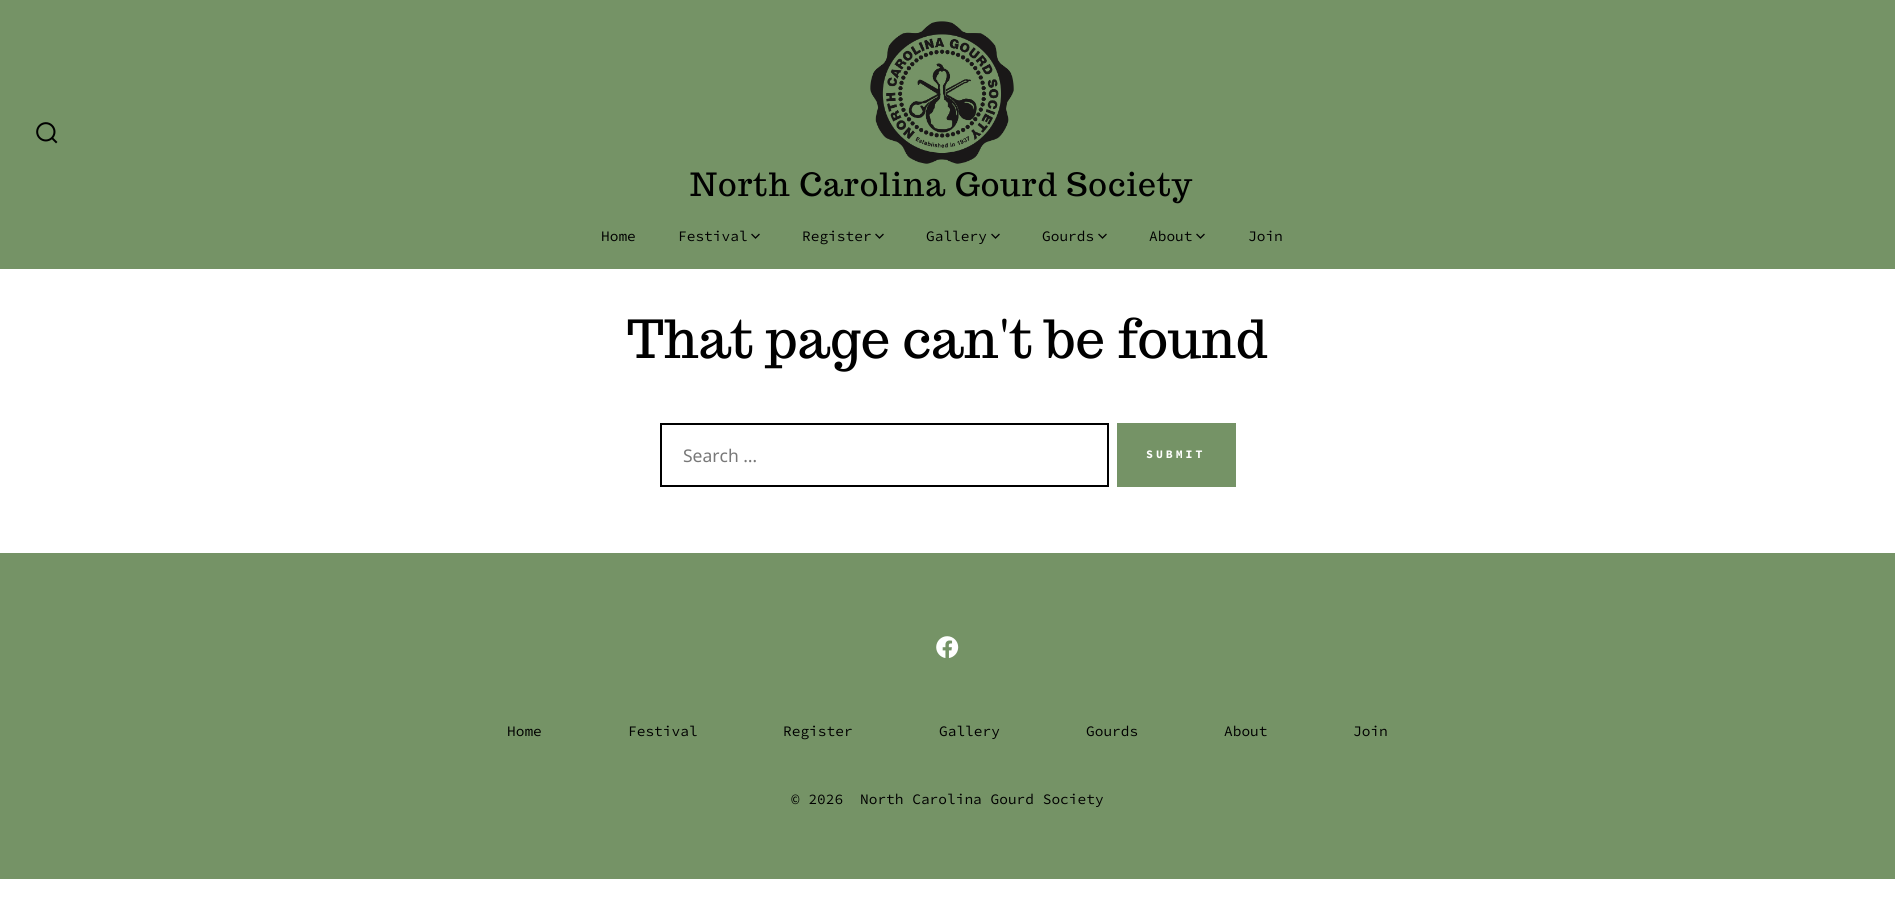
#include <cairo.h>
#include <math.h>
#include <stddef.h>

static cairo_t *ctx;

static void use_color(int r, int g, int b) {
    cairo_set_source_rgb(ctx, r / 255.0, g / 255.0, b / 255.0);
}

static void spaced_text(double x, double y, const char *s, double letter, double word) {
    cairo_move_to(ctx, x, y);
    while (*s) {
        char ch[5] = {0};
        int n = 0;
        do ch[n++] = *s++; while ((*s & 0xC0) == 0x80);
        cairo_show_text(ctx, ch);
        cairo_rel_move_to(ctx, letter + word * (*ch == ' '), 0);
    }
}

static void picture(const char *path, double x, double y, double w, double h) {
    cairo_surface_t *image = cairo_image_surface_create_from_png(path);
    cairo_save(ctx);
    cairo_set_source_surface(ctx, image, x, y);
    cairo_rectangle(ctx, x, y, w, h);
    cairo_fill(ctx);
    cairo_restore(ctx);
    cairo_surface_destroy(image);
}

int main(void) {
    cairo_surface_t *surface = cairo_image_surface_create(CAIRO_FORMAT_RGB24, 1895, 902);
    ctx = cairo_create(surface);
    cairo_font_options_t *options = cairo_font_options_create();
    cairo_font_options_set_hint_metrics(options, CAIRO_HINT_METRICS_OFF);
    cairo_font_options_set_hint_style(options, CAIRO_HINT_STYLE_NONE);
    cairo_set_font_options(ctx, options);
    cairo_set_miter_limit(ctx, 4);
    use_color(255, 255, 255);
    cairo_paint(ctx);
    use_color(117, 147, 102);
    cairo_rectangle(ctx, 0, 0, 1895, 269);
    cairo_fill(ctx);
    picture("img1.png", 36, 122, 22, 22);
    picture("img2.png", 870, 21, 144, 143);
    cairo_select_font_face(ctx, "Trocchi", CAIRO_FONT_SLANT_NORMAL, CAIRO_FONT_WEIGHT_NORMAL);
    cairo_set_font_size(ctx, 32);
    use_color(0, 0, 0);
    spaced_text(690, 196, "North Carolina Gourd Society", 1.05, 0);
    cairo_select_font_face(ctx, "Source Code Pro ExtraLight", CAIRO_FONT_SLANT_NORMAL, CAIRO_FONT_WEIGHT_NORMAL);
    cairo_set_font_size(ctx, 14.5);
    cairo_move_to(ctx, 601, 241);
    cairo_show_text(ctx, "Home");
    cairo_move_to(ctx, 678, 241);
    cairo_show_text(ctx, "Festival");
    cairo_new_path(ctx);
    cairo_move_to(ctx, 752, 234.5);
    cairo_line_to(ctx, 755.5, 238);
    cairo_line_to(ctx, 759, 234.5);
    cairo_set_line_width(ctx, 1.3);
    cairo_set_line_cap(ctx, CAIRO_LINE_CAP_SQUARE);
    cairo_stroke(ctx);
    cairo_move_to(ctx, 802, 241);
    cairo_show_text(ctx, "Register");
    cairo_new_path(ctx);
    cairo_move_to(ctx, 876, 234.5);
    cairo_line_to(ctx, 879.5, 238);
    cairo_line_to(ctx, 883, 234.5);
    cairo_stroke(ctx);
    cairo_move_to(ctx, 926, 241);
    cairo_show_text(ctx, "Gallery");
    cairo_new_path(ctx);
    cairo_move_to(ctx, 992, 234.5);
    cairo_line_to(ctx, 995.5, 238);
    cairo_line_to(ctx, 999, 234.5);
    cairo_stroke(ctx);
    cairo_move_to(ctx, 1042, 241);
    cairo_show_text(ctx, "Gourds");
    cairo_new_path(ctx);
    cairo_move_to(ctx, 1099, 234.5);
    cairo_line_to(ctx, 1102.5, 238);
    cairo_line_to(ctx, 1106, 234.5);
    cairo_stroke(ctx);
    cairo_move_to(ctx, 1149, 241);
    cairo_show_text(ctx, "About");
    cairo_new_path(ctx);
    cairo_move_to(ctx, 1197, 234.5);
    cairo_line_to(ctx, 1200.5, 238);
    cairo_line_to(ctx, 1204, 234.5);
    cairo_stroke(ctx);
    cairo_move_to(ctx, 1248, 241);
    cairo_show_text(ctx, "Join");
    cairo_select_font_face(ctx, "Trocchi", CAIRO_FONT_SLANT_NORMAL, CAIRO_FONT_WEIGHT_NORMAL);
    cairo_set_font_size(ctx, 52.5);
    cairo_move_to(ctx, 627, 358);
    cairo_show_text(ctx, "That page can't be found");
    cairo_rectangle(ctx, 661, 424, 447, 62);
    cairo_set_line_width(ctx, 2);
    cairo_set_line_cap(ctx, CAIRO_LINE_CAP_BUTT);
    cairo_stroke(ctx);
    cairo_select_font_face(ctx, "Noto Sans", CAIRO_FONT_SLANT_NORMAL, CAIRO_FONT_WEIGHT_NORMAL);
    cairo_set_font_size(ctx, 17.5);
    use_color(120, 120, 120);
    cairo_move_to(ctx, 683, 462);
    cairo_show_text(ctx, "Search …");
    use_color(117, 147, 102);
    cairo_rectangle(ctx, 1117, 423, 119, 64);
    cairo_fill(ctx);
    cairo_select_font_face(ctx, "Source Code Pro ExtraLight", CAIRO_FONT_SLANT_NORMAL, CAIRO_FONT_WEIGHT_BOLD);
    cairo_set_font_size(ctx, 11.5);
    use_color(255, 255, 255);
    spaced_text(1146, 458, "SUBMIT", 3, 0);
    use_color(117, 147, 102);
    cairo_rectangle(ctx, 0, 553, 1895, 326);
    cairo_fill(ctx);
    picture("img3.png", 936, 636, 23, 22);
    cairo_select_font_face(ctx, "Source Code Pro ExtraLight", CAIRO_FONT_SLANT_NORMAL, CAIRO_FONT_WEIGHT_NORMAL);
    cairo_set_font_size(ctx, 14.5);
    use_color(0, 0, 0);
    cairo_move_to(ctx, 507, 736);
    cairo_show_text(ctx, "Home");
    cairo_move_to(ctx, 628, 736);
    cairo_show_text(ctx, "Festival");
    cairo_move_to(ctx, 783, 736);
    cairo_show_text(ctx, "Register");
    cairo_move_to(ctx, 939, 736);
    cairo_show_text(ctx, "Gallery");
    cairo_move_to(ctx, 1086, 736);
    cairo_show_text(ctx, "Gourds");
    cairo_move_to(ctx, 1224, 736);
    cairo_show_text(ctx, "About");
    cairo_move_to(ctx, 1353, 736);
    cairo_show_text(ctx, "Join");
    cairo_move_to(ctx, 791, 804);
    cairo_show_text(ctx, "© 2026");
    cairo_move_to(ctx, 860, 804);
    cairo_show_text(ctx, "North Carolina Gourd Society");
    cairo_surface_write_to_png(surface, "result.png");
    cairo_font_options_destroy(options);
    cairo_destroy(ctx);
    cairo_surface_destroy(surface);
    return 0;
}
